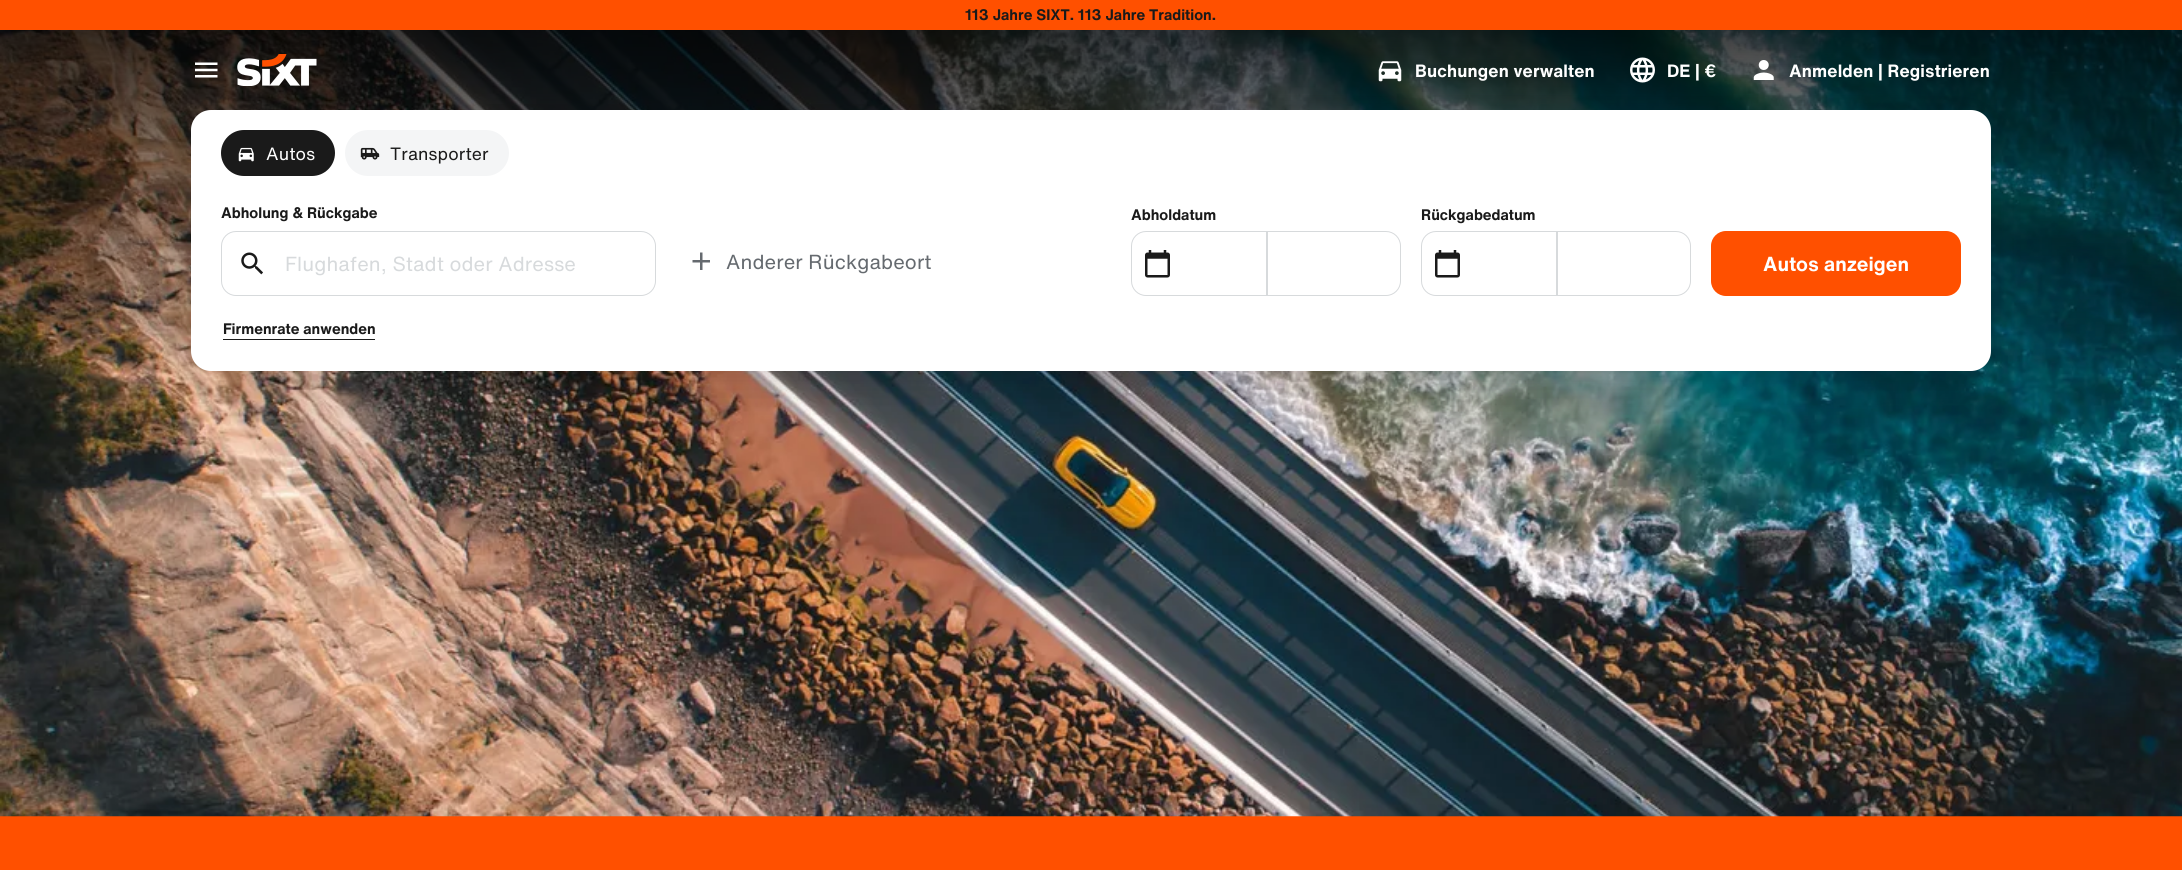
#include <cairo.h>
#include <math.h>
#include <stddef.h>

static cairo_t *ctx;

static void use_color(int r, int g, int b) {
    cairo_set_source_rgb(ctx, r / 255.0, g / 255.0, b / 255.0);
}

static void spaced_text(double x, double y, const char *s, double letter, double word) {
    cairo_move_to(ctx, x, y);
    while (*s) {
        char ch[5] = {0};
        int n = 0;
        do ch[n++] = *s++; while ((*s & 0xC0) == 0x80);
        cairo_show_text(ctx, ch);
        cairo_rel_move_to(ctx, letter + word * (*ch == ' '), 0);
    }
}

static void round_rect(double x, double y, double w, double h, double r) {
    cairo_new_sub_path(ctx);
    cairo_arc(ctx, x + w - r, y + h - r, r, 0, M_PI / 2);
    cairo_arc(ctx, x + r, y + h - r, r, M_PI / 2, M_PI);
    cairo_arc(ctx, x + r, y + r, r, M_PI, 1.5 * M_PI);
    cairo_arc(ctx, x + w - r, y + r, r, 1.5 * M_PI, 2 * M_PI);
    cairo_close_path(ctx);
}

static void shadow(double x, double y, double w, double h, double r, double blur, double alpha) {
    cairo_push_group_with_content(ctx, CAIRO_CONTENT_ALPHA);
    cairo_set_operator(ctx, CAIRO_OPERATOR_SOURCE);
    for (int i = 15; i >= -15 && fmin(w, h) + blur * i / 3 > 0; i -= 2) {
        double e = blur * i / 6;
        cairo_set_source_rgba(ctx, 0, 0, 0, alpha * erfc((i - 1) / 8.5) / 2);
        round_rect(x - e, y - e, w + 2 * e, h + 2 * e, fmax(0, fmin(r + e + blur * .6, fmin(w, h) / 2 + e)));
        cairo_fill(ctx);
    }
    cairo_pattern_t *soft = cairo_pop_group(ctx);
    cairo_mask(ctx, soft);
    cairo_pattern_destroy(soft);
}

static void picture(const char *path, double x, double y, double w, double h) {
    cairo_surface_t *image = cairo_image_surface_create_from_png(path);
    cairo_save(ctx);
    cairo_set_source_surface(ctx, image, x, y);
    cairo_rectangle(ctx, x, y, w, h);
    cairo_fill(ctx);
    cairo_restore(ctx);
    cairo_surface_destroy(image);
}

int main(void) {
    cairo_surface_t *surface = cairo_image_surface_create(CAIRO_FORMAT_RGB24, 2182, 870);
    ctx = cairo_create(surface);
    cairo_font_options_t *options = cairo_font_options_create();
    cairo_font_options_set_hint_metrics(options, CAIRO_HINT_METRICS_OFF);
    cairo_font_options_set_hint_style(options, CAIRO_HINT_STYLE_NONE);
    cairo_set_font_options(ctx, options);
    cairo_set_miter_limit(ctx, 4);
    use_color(255, 80, 0);
    cairo_paint(ctx);
    cairo_select_font_face(ctx, "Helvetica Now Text", CAIRO_FONT_SLANT_NORMAL, CAIRO_FONT_WEIGHT_BOLD);
    cairo_set_font_size(ctx, 15);
    use_color(26, 26, 26);
    cairo_move_to(ctx, 965, 20);
    cairo_show_text(ctx, "113 Jahre SIXT. 113 Jahre Tradition.");
    picture("img6.png", 0, 30, 2182, 787);
    use_color(0, 0, 0);
    shadow(191, 120, 1800, 261, 20, 20, 0.08);
    shadow(191, 125, 1800, 261, 20, 25, 0.1);
    picture("img1.png", 195, 62, 23, 16);
    picture("img2.png", 237, 54, 80, 32);
    picture("img3.png", 1378, 61, 24, 21);
    cairo_set_font_size(ctx, 17.5);
    use_color(255, 255, 255);
    spaced_text(1415, 77, "Buchungen verwalten", 0.15, 0);
    picture("img4.png", 1630, 57, 25, 26);
    spaced_text(1667, 77, "DE | €", 0.15, 0);
    picture("img5.png", 1753, 60, 21, 20);
    spaced_text(1789, 77, "Anmelden | Registrieren", 0.15, 0);
    round_rect(191, 110, 1800, 261, 20);
    cairo_fill(ctx);
    use_color(26, 26, 26);
    round_rect(221, 130, 114, 46, 23);
    cairo_fill(ctx);
    picture("img7.png", 238, 147, 16, 15);
    cairo_select_font_face(ctx, "Helvetica Now Text", CAIRO_FONT_SLANT_NORMAL, CAIRO_FONT_WEIGHT_NORMAL);
    use_color(255, 255, 255);
    spaced_text(266, 160, "Autos", 0.15, 0);
    use_color(244, 245, 246);
    round_rect(345, 130, 164, 46, 23);
    cairo_fill(ctx);
    picture("img8.png", 360, 147, 20, 13);
    use_color(26, 26, 26);
    spaced_text(390, 160, "Transporter", 0.15, 0);
    cairo_select_font_face(ctx, "Helvetica Now Text", CAIRO_FONT_SLANT_NORMAL, CAIRO_FONT_WEIGHT_BOLD);
    cairo_set_font_size(ctx, 15);
    cairo_move_to(ctx, 221, 218);
    cairo_show_text(ctx, "Abholung & Rückgabe");
    round_rect(221.5, 231.5, 434, 64, 14.5);
    use_color(215, 218, 220);
    cairo_set_line_width(ctx, 1);
    cairo_stroke(ctx);
    picture("img9.png", 241, 252, 22, 23);
    cairo_select_font_face(ctx, "Helvetica Now Text", CAIRO_FONT_SLANT_NORMAL, CAIRO_FONT_WEIGHT_NORMAL);
    cairo_set_font_size(ctx, 20);
    spaced_text(285, 271, "Flughafen, Stadt oder Adresse", 0.1, 0);
    picture("img10.png", 692, 252, 18, 18);
    use_color(101, 106, 111);
    spaced_text(726, 269, "Anderer Rückgabeort", 0.1, 0);
    cairo_select_font_face(ctx, "Helvetica Now Text", CAIRO_FONT_SLANT_NORMAL, CAIRO_FONT_WEIGHT_BOLD);
    cairo_set_font_size(ctx, 15);
    use_color(26, 26, 26);
    cairo_move_to(ctx, 1131, 220);
    cairo_show_text(ctx, "Abholdatum");
    cairo_new_path(ctx);
    cairo_move_to(ctx, 1146, 231.5);
    cairo_line_to(ctx, 1267.5, 231.5);
    cairo_line_to(ctx, 1267.5, 295.5);
    cairo_line_to(ctx, 1146, 295.5);
    cairo_curve_to(ctx, 1138, 295.5, 1131.5, 289, 1131.5, 281);
    cairo_line_to(ctx, 1131.5, 246);
    cairo_curve_to(ctx, 1131.5, 238, 1138, 231.5, 1146, 231.5);
    cairo_close_path(ctx);
    use_color(215, 218, 220);
    cairo_stroke(ctx);
    picture("img11.png", 1145, 250, 25, 28);
    cairo_new_path(ctx);
    cairo_move_to(ctx, 1266.5, 231.5);
    cairo_line_to(ctx, 1386, 231.5);
    cairo_curve_to(ctx, 1394, 231.5, 1400.5, 238, 1400.5, 246);
    cairo_line_to(ctx, 1400.5, 281);
    cairo_curve_to(ctx, 1400.5, 289, 1394, 295.5, 1386, 295.5);
    cairo_line_to(ctx, 1266.5, 295.5);
    cairo_close_path(ctx);
    cairo_stroke(ctx);
    use_color(26, 26, 26);
    cairo_move_to(ctx, 1421, 220);
    cairo_show_text(ctx, "Rückgabedatum");
    cairo_new_path(ctx);
    cairo_move_to(ctx, 1436, 231.5);
    cairo_line_to(ctx, 1557.5, 231.5);
    cairo_line_to(ctx, 1557.5, 295.5);
    cairo_line_to(ctx, 1436, 295.5);
    cairo_curve_to(ctx, 1428, 295.5, 1421.5, 289, 1421.5, 281);
    cairo_line_to(ctx, 1421.5, 246);
    cairo_curve_to(ctx, 1421.5, 238, 1428, 231.5, 1436, 231.5);
    cairo_close_path(ctx);
    use_color(215, 218, 220);
    cairo_stroke(ctx);
    picture("img11.png", 1435, 250, 25, 28);
    cairo_new_path(ctx);
    cairo_move_to(ctx, 1556.5, 231.5);
    cairo_line_to(ctx, 1676, 231.5);
    cairo_curve_to(ctx, 1684, 231.5, 1690.5, 238, 1690.5, 246);
    cairo_line_to(ctx, 1690.5, 281);
    cairo_curve_to(ctx, 1690.5, 289, 1684, 295.5, 1676, 295.5);
    cairo_line_to(ctx, 1556.5, 295.5);
    cairo_close_path(ctx);
    cairo_stroke(ctx);
    use_color(255, 80, 0);
    round_rect(1711, 231, 250, 65, 15);
    cairo_fill(ctx);
    cairo_set_font_size(ctx, 20);
    use_color(255, 255, 255);
    spaced_text(1763, 271, "Autos anzeigen", 0.1, 0);
    use_color(26, 26, 26);
    cairo_rectangle(ctx, 223, 339, 152, 1);
    cairo_fill(ctx);
    cairo_set_font_size(ctx, 15);
    cairo_move_to(ctx, 223, 334);
    cairo_show_text(ctx, "Firmenrate anwenden");
    cairo_surface_write_to_png(surface, "result.png");
    cairo_font_options_destroy(options);
    cairo_destroy(ctx);
    cairo_surface_destroy(surface);
    return 0;
}
